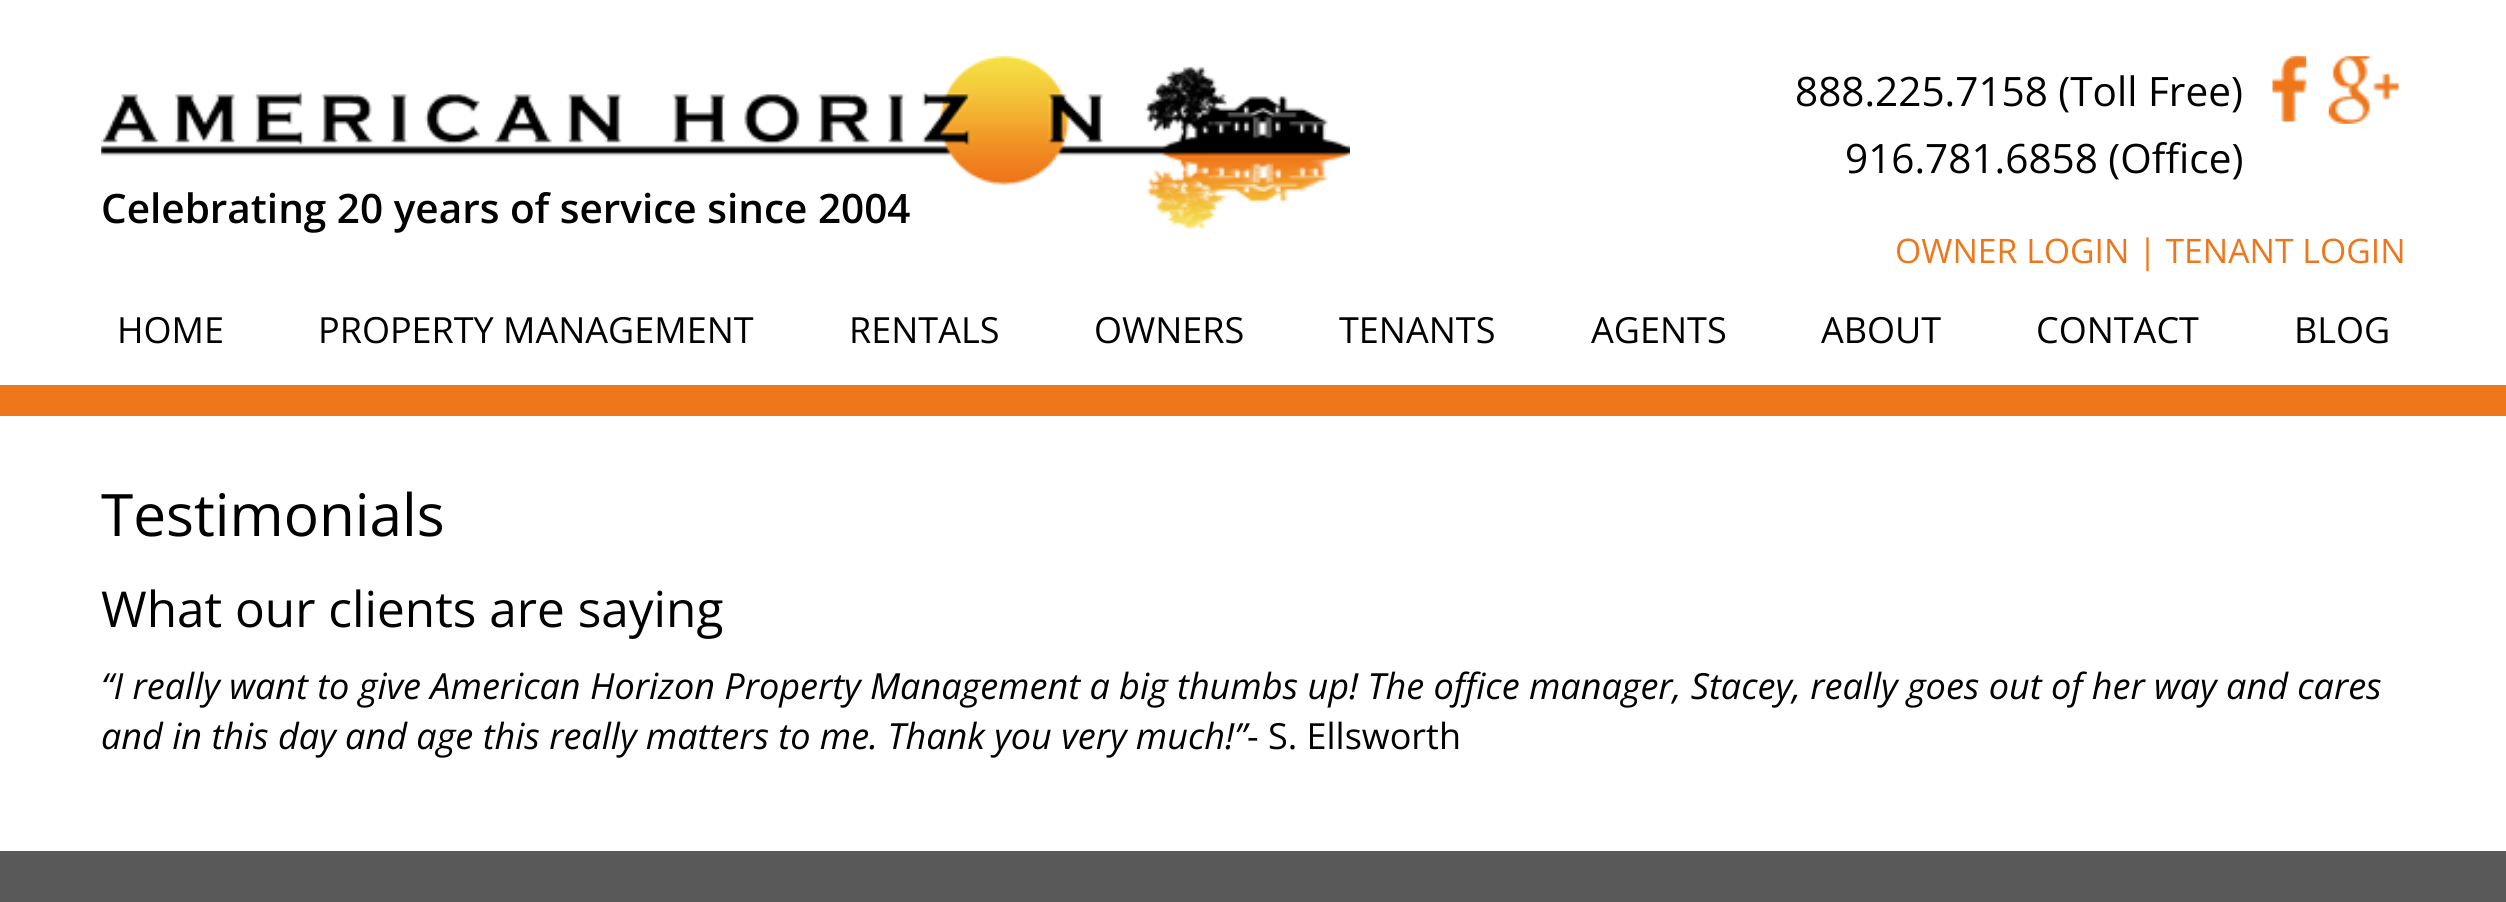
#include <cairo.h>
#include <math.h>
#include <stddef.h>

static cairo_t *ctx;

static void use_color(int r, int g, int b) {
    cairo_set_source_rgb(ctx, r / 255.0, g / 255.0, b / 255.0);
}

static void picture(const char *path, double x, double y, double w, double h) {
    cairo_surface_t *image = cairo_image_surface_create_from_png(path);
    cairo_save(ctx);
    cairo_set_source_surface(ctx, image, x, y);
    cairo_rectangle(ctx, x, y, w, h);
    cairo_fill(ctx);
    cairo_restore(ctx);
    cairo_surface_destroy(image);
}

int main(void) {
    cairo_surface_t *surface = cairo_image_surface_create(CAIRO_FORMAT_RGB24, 2506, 902);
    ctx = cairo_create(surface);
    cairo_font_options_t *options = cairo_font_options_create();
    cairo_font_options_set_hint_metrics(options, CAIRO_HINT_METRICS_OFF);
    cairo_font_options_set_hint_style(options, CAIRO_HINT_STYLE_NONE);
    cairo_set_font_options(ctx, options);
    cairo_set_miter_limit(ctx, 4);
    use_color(255, 255, 255);
    cairo_paint(ctx);
    use_color(239, 119, 27);
    cairo_rectangle(ctx, 0, 385, 2506, 31);
    cairo_fill(ctx);
    picture("img1.png", 101, 56, 1249, 174);
    cairo_select_font_face(ctx, "Open Sans", CAIRO_FONT_SLANT_NORMAL, CAIRO_FONT_WEIGHT_NORMAL);
    cairo_set_font_size(ctx, 40.5);
    use_color(0, 0, 0);
    cairo_move_to(ctx, 1795, 106);
    cairo_show_text(ctx, "888.225.7158 (Toll Free)");
    cairo_move_to(ctx, 1845, 173);
    cairo_show_text(ctx, "916.781.6858 (Office)");
    picture("img2.png", 2272, 56, 35, 66);
    picture("img3.png", 2328, 56, 71, 68);
    cairo_set_font_size(ctx, 33.75);
    use_color(239, 119, 27);
    cairo_move_to(ctx, 1895, 263);
    cairo_show_text(ctx, "OWNER LOGIN | TENANT LOGIN");
    cairo_select_font_face(ctx, "Open Sans SemiBold", CAIRO_FONT_SLANT_NORMAL, CAIRO_FONT_WEIGHT_NORMAL);
    cairo_set_font_size(ctx, 40.5);
    use_color(0, 0, 0);
    cairo_move_to(ctx, 101, 223);
    cairo_show_text(ctx, "Celebrating 20 years of service since 2004");
    cairo_select_font_face(ctx, "Open Sans", CAIRO_FONT_SLANT_NORMAL, CAIRO_FONT_WEIGHT_NORMAL);
    cairo_set_font_size(ctx, 36);
    cairo_move_to(ctx, 117, 343);
    cairo_show_text(ctx, "HOME");
    cairo_move_to(ctx, 318, 343);
    cairo_show_text(ctx, "PROPERTY MANAGEMENT");
    cairo_move_to(ctx, 849, 343);
    cairo_show_text(ctx, "RENTALS");
    cairo_move_to(ctx, 1094, 343);
    cairo_show_text(ctx, "OWNERS");
    cairo_move_to(ctx, 1339, 343);
    cairo_show_text(ctx, "TENANTS");
    cairo_move_to(ctx, 1591, 343);
    cairo_show_text(ctx, "AGENTS");
    cairo_move_to(ctx, 1821, 343);
    cairo_show_text(ctx, "ABOUT");
    cairo_move_to(ctx, 2036, 343);
    cairo_show_text(ctx, "CONTACT");
    cairo_move_to(ctx, 2294, 343);
    cairo_show_text(ctx, "BLOG");
    cairo_set_font_size(ctx, 58.5);
    cairo_move_to(ctx, 101, 536);
    cairo_show_text(ctx, "Testimonials");
    cairo_set_font_size(ctx, 49.5);
    cairo_move_to(ctx, 101, 627);
    cairo_show_text(ctx, "What our clients are saying");
    cairo_select_font_face(ctx, "Open Sans", CAIRO_FONT_SLANT_ITALIC, CAIRO_FONT_WEIGHT_NORMAL);
    cairo_set_font_size(ctx, 36);
    cairo_move_to(ctx, 101, 699);
    cairo_show_text(ctx, "“I really want to give American Horizon Property Management a big thumbs up! The office manager, Stacey, really goes out of her way and cares");
    cairo_move_to(ctx, 101, 749);
    cairo_show_text(ctx, "and in this day and age this really matters to me. Thank you very much!”");
    cairo_select_font_face(ctx, "Open Sans", CAIRO_FONT_SLANT_NORMAL, CAIRO_FONT_WEIGHT_NORMAL);
    cairo_move_to(ctx, 1247, 749);
    cairo_show_text(ctx, "- S. Ellsworth");
    use_color(89, 89, 89);
    cairo_rectangle(ctx, 0, 851, 2506, 51);
    cairo_fill(ctx);
    cairo_surface_write_to_png(surface, "result.png");
    cairo_font_options_destroy(options);
    cairo_destroy(ctx);
    cairo_surface_destroy(surface);
    return 0;
}
